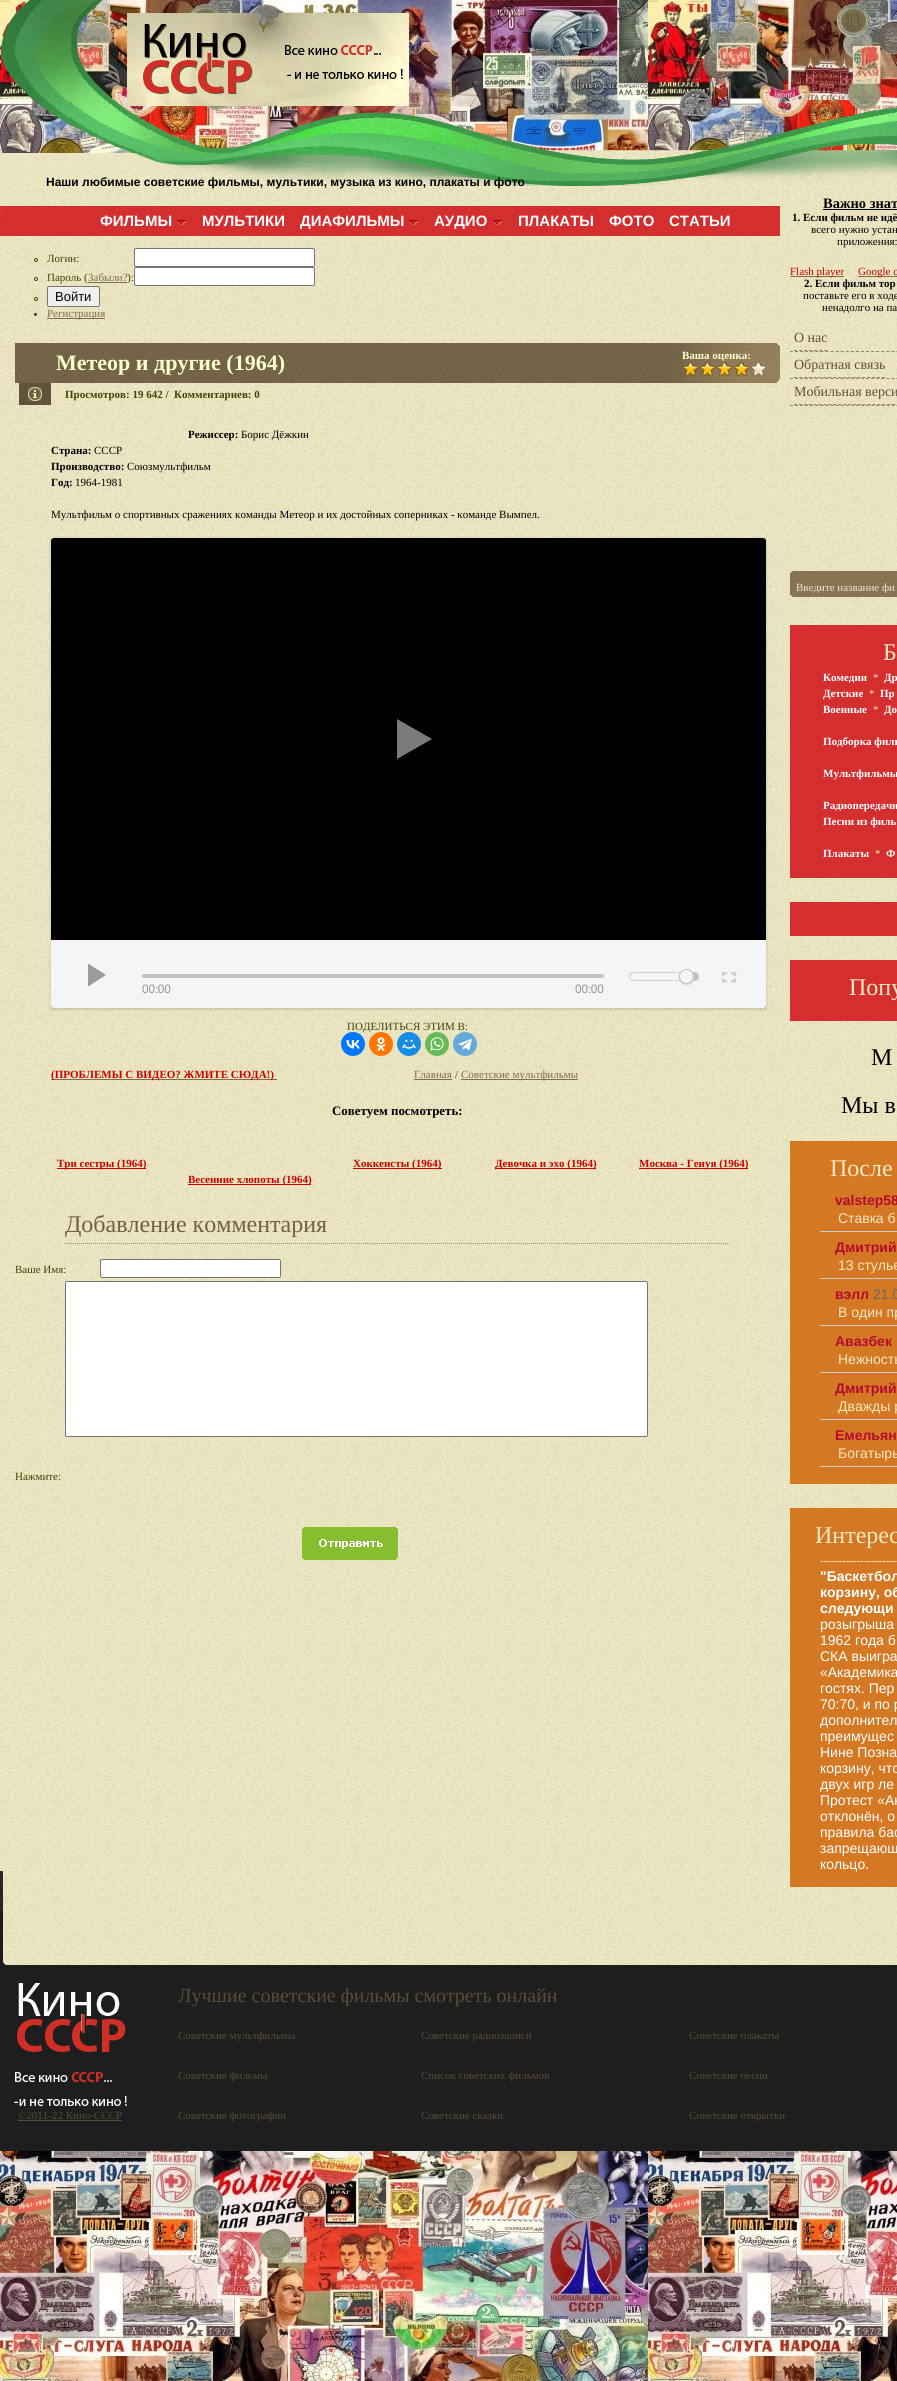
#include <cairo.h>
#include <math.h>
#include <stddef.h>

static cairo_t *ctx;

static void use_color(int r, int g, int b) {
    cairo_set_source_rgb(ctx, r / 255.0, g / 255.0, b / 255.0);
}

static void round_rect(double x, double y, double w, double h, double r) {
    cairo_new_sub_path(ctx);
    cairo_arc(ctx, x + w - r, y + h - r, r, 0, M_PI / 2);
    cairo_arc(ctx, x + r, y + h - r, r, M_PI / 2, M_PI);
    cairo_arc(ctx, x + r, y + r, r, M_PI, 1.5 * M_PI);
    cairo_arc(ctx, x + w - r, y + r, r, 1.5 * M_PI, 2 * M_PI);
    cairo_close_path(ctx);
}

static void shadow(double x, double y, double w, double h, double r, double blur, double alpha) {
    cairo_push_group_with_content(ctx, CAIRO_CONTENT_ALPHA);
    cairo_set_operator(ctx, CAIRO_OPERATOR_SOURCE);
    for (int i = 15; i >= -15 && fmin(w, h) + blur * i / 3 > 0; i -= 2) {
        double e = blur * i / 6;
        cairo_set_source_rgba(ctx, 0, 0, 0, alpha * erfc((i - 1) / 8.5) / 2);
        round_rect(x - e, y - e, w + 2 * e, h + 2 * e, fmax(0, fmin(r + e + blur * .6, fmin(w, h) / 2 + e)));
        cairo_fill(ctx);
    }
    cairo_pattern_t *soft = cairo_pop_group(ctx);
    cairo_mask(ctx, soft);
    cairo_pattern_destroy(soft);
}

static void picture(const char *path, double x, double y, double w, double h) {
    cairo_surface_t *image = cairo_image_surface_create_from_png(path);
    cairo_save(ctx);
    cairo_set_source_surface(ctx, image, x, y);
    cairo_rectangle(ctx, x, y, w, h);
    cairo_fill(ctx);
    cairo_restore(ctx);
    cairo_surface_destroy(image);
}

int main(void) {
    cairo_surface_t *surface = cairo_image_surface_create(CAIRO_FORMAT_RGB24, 897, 2381);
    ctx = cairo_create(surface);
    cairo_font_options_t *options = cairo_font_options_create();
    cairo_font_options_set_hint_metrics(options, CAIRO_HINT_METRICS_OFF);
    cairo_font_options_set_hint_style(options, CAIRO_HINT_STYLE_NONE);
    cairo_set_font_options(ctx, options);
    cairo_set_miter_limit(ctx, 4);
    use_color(255, 255, 255);
    cairo_paint(ctx);
    picture("img1.png", 0, 2151, 897, 230);
    picture("img2.png", 0, 0, 897, 153);
    picture("img3.png", 0, 0, 897, 186);
    picture("img4.png", 0, 186, 897, 1725);
    picture("img5.png", 0, 186, 92, 20);
    cairo_select_font_face(ctx, "Liberation Sans", CAIRO_FONT_SLANT_NORMAL, CAIRO_FONT_WEIGHT_BOLD);
    cairo_set_font_size(ctx, 12);
    use_color(0, 0, 0);
    cairo_move_to(ctx, 46, 186);
    cairo_show_text(ctx, "Наши любимые советские фильмы, мультики, музыка из кино, плакаты и фото");
    picture("img6.png", 0, 206, 92, 30);
    use_color(213, 46, 46);
    cairo_rectangle(ctx, 92, 206, 680, 30);
    cairo_fill(ctx);
    cairo_set_font_size(ctx, 15);
    use_color(255, 255, 255);
    cairo_move_to(ctx, 100, 226);
    cairo_show_text(ctx, "ФИЛЬМЫ");
    picture("img7.png", 177, 220, 9, 5);
    cairo_move_to(ctx, 202, 226);
    cairo_show_text(ctx, "МУЛЬТИКИ");
    cairo_move_to(ctx, 300, 226);
    cairo_show_text(ctx, "ДИАФИЛЬМЫ");
    picture("img7.png", 409, 220, 9, 5);
    cairo_move_to(ctx, 434, 226);
    cairo_show_text(ctx, "АУДИО");
    picture("img7.png", 493, 220, 9, 5);
    cairo_move_to(ctx, 518, 226);
    cairo_show_text(ctx, "ПЛАКАТЫ");
    cairo_move_to(ctx, 609, 226);
    cairo_show_text(ctx, "ФОТО");
    cairo_move_to(ctx, 669, 226);
    cairo_show_text(ctx, "СТАТЬИ");
    use_color(213, 46, 46);
    cairo_rectangle(ctx, 772, 206, 8, 30);
    cairo_fill(ctx);
    picture("img8.png", 0, 236, 47, 47);
    cairo_arc(ctx, 36, 260, 1.5, 0, 2 * M_PI);
    use_color(64, 69, 7);
    cairo_set_line_width(ctx, 1);
    cairo_stroke(ctx);
    cairo_select_font_face(ctx, "Liberation Serif", CAIRO_FONT_SLANT_NORMAL, CAIRO_FONT_WEIGHT_NORMAL);
    cairo_set_font_size(ctx, 11);
    cairo_move_to(ctx, 47, 262);
    cairo_show_text(ctx, "Логин:");
    use_color(255, 255, 255);
    round_rect(134.5, 248.5, 180, 18, 1.5);
    cairo_fill_preserve(ctx);
    use_color(118, 118, 118);
    cairo_stroke(ctx);
    cairo_arc(ctx, 36, 279, 1.5, 0, 2 * M_PI);
    use_color(64, 69, 7);
    cairo_stroke(ctx);
    cairo_move_to(ctx, 47, 281);
    cairo_show_text(ctx, "Пароль (");
    use_color(127, 108, 75);
    cairo_rectangle(ctx, 88, 282, 39, 1);
    cairo_fill(ctx);
    cairo_move_to(ctx, 88, 281);
    cairo_show_text(ctx, "Забыли?");
    use_color(64, 69, 7);
    cairo_move_to(ctx, 127, 281);
    cairo_show_text(ctx, "):");
    use_color(255, 255, 255);
    round_rect(134.5, 267.5, 180, 18, 1.5);
    cairo_fill_preserve(ctx);
    use_color(118, 118, 118);
    cairo_stroke(ctx);
    cairo_arc(ctx, 36, 299, 1.5, 0, 2 * M_PI);
    use_color(64, 69, 7);
    cairo_stroke(ctx);
    use_color(239, 239, 239);
    round_rect(47.5, 286.5, 52, 20, 1.5);
    cairo_fill_preserve(ctx);
    use_color(118, 118, 118);
    cairo_stroke(ctx);
    cairo_select_font_face(ctx, "Liberation Sans", CAIRO_FONT_SLANT_NORMAL, CAIRO_FONT_WEIGHT_NORMAL);
    cairo_set_font_size(ctx, 13);
    use_color(0, 0, 0);
    cairo_move_to(ctx, 55, 301);
    cairo_show_text(ctx, "Войти");
    use_color(64, 69, 7);
    cairo_new_path(ctx);
    cairo_arc(ctx, 35.5, 314.5, 1.5, 0, 2 * M_PI);
    cairo_fill(ctx);
    use_color(127, 108, 75);
    cairo_rectangle(ctx, 47, 318, 58, 1);
    cairo_fill(ctx);
    cairo_select_font_face(ctx, "Liberation Serif", CAIRO_FONT_SLANT_NORMAL, CAIRO_FONT_WEIGHT_NORMAL);
    cairo_set_font_size(ctx, 11);
    cairo_move_to(ctx, 47, 317);
    cairo_show_text(ctx, "Регистрация");
    picture("img9.png", 15, 343, 765, 737);
    use_color(116, 100, 72);
    cairo_rectangle(ctx, 15, 343, 4, 3);
    cairo_fill(ctx);
    picture("img10.png", 19, 343, 32, 3);
    picture("img11.png", 51, 343, 616, 3);
    picture("img12.png", 667, 343, 100, 3);
    picture("img13.png", 767, 343, 12, 3);
    picture("img14.png", 15, 346, 4, 33);
    picture("img15.png", 19, 346, 32, 33);
    picture("img16.png", 51, 346, 616, 33);
    cairo_select_font_face(ctx, "Liberation Serif", CAIRO_FONT_SLANT_NORMAL, CAIRO_FONT_WEIGHT_BOLD);
    cairo_set_font_size(ctx, 22);
    use_color(255, 255, 204);
    cairo_move_to(ctx, 56, 370);
    cairo_show_text(ctx, "Метеор и другие (1964)");
    picture("img17.png", 667, 346, 100, 33);
    cairo_set_font_size(ctx, 11);
    cairo_move_to(ctx, 682, 359);
    cairo_show_text(ctx, "Ваша оценка:");
    picture("img18.png", 751, 362, 15, 14);
    picture("img19.png", 683, 362, 66, 14);
    picture("img20.png", 767, 346, 13, 33);
    use_color(115, 99, 70);
    cairo_rectangle(ctx, 15, 379, 4, 4);
    cairo_fill(ctx);
    picture("img21.png", 19, 379, 32, 4);
    picture("img22.png", 51, 379, 616, 4);
    picture("img23.png", 667, 379, 100, 4);
    picture("img24.png", 767, 379, 12, 4);
    use_color(96, 82, 59);
    cairo_rectangle(ctx, 19, 383, 32, 22);
    cairo_fill(ctx);
    picture("img25.png", 28, 387, 14, 14);
    use_color(64, 69, 7);
    cairo_move_to(ctx, 65, 398);
    cairo_show_text(ctx, "Просмотров: 19 642 /  Комментариев: 0");
    use_color(0, 0, 0);
    cairo_move_to(ctx, 188, 438);
    cairo_show_text(ctx, "Режиссер:");
    cairo_select_font_face(ctx, "Liberation Serif", CAIRO_FONT_SLANT_NORMAL, CAIRO_FONT_WEIGHT_NORMAL);
    cairo_move_to(ctx, 241, 438);
    cairo_show_text(ctx, "Борис Дёжкин");
    cairo_select_font_face(ctx, "Liberation Serif", CAIRO_FONT_SLANT_NORMAL, CAIRO_FONT_WEIGHT_BOLD);
    cairo_move_to(ctx, 51, 454);
    cairo_show_text(ctx, "Страна:");
    cairo_select_font_face(ctx, "Liberation Serif", CAIRO_FONT_SLANT_NORMAL, CAIRO_FONT_WEIGHT_NORMAL);
    cairo_move_to(ctx, 94, 454);
    cairo_show_text(ctx, "СССР");
    cairo_select_font_face(ctx, "Liberation Serif", CAIRO_FONT_SLANT_NORMAL, CAIRO_FONT_WEIGHT_BOLD);
    cairo_move_to(ctx, 51, 470);
    cairo_show_text(ctx, "Производство:");
    cairo_select_font_face(ctx, "Liberation Serif", CAIRO_FONT_SLANT_NORMAL, CAIRO_FONT_WEIGHT_NORMAL);
    cairo_move_to(ctx, 127, 470);
    cairo_show_text(ctx, "Союзмультфильм");
    cairo_select_font_face(ctx, "Liberation Serif", CAIRO_FONT_SLANT_NORMAL, CAIRO_FONT_WEIGHT_BOLD);
    cairo_move_to(ctx, 51, 486);
    cairo_show_text(ctx, "Год:");
    cairo_select_font_face(ctx, "Liberation Serif", CAIRO_FONT_SLANT_NORMAL, CAIRO_FONT_WEIGHT_NORMAL);
    cairo_move_to(ctx, 75, 486);
    cairo_show_text(ctx, "1964-1981");
    cairo_move_to(ctx, 51, 518);
    cairo_show_text(ctx, "Мультфильм о спортивных сражениях команды Метеор и их достойных соперниках - команде Вымпел.");
    use_color(0, 0, 0);
    shadow(51, 539, 715, 470, 0, 1.5, 0.2);
    use_color(0, 0, 0);
    cairo_new_path(ctx);
    cairo_move_to(ctx, 54, 538);
    cairo_line_to(ctx, 763, 538);
    cairo_curve_to(ctx, 764.5, 538, 766, 539.5, 766, 541);
    cairo_line_to(ctx, 766, 940);
    cairo_line_to(ctx, 51, 940);
    cairo_line_to(ctx, 51, 541);
    cairo_curve_to(ctx, 51, 539.5, 52.5, 538, 54, 538);
    cairo_close_path(ctx);
    cairo_fill(ctx);
    use_color(122, 123, 124);
    cairo_new_path(ctx);
    cairo_move_to(ctx, 397, 759);
    cairo_line_to(ctx, 397, 719);
    cairo_line_to(ctx, 432, 739);
    cairo_close_path(ctx);
    cairo_fill(ctx);
    use_color(243, 245, 247);
    cairo_new_path(ctx);
    cairo_move_to(ctx, 51, 940);
    cairo_line_to(ctx, 766, 940);
    cairo_line_to(ctx, 766, 1005);
    cairo_curve_to(ctx, 766, 1006.5, 764.5, 1008, 763, 1008);
    cairo_line_to(ctx, 54, 1008);
    cairo_curve_to(ctx, 52.5, 1008, 51, 1006.5, 51, 1005);
    cairo_close_path(ctx);
    cairo_fill(ctx);
    use_color(155, 155, 155);
    cairo_new_path(ctx);
    cairo_move_to(ctx, 88, 963.5);
    cairo_line_to(ctx, 88, 986.5);
    cairo_line_to(ctx, 106, 975);
    cairo_close_path(ctx);
    cairo_fill(ctx);
    use_color(194, 194, 194);
    round_rect(629, 972, 70, 9, 4.5);
    cairo_fill(ctx);
    use_color(243, 245, 247);
    round_rect(629.5, 972.5, 57, 8, 4);
    cairo_fill_preserve(ctx);
    use_color(209, 209, 209);
    cairo_stroke(ctx);
    use_color(212, 212, 212);
    shadow(679, 970, 15, 15, 7.5, 0.5, 1);
    use_color(243, 245, 247);
    cairo_arc(ctx, 686.5, 976.5, 7, 0, 2 * M_PI);
    cairo_fill_preserve(ctx);
    use_color(194, 194, 194);
    cairo_stroke(ctx);
    picture("img26.png", 721, 972, 16, 11);
    round_rect(142, 974, 462, 4, 2);
    cairo_fill(ctx);
    cairo_select_font_face(ctx, "PT Sans", CAIRO_FONT_SLANT_NORMAL, CAIRO_FONT_WEIGHT_NORMAL);
    cairo_set_font_size(ctx, 12);
    use_color(145, 145, 145);
    cairo_move_to(ctx, 142, 993);
    cairo_show_text(ctx, "00:00");
    cairo_move_to(ctx, 575, 993);
    cairo_show_text(ctx, "00:00");
    cairo_select_font_face(ctx, "Liberation Serif", CAIRO_FONT_SLANT_NORMAL, CAIRO_FONT_WEIGHT_NORMAL);
    cairo_set_font_size(ctx, 11);
    use_color(64, 69, 7);
    cairo_move_to(ctx, 347, 1030);
    cairo_show_text(ctx, "ПОДЕЛИТЬСЯ ЭТИМ В:");
    use_color(0, 119, 255);
    cairo_new_path(ctx);
    cairo_arc(ctx, 353, 1044, 12, 0, 2 * M_PI);
    cairo_fill(ctx);
    picture("img27.png", 346, 1040, 14, 9);
    use_color(255, 119, 0);
    cairo_arc(ctx, 381, 1044, 12, 0, 2 * M_PI);
    cairo_fill(ctx);
    picture("img28.png", 376, 1037, 10, 14);
    use_color(22, 141, 226);
    cairo_arc(ctx, 409, 1044, 12, 0, 2 * M_PI);
    cairo_fill(ctx);
    picture("img29.png", 402, 1039, 14, 10);
    use_color(101, 188, 84);
    cairo_arc(ctx, 437, 1044, 12, 0, 2 * M_PI);
    cairo_fill(ctx);
    picture("img30.png", 430, 1037, 14, 14);
    use_color(100, 169, 220);
    cairo_arc(ctx, 465, 1044, 12, 0, 2 * M_PI);
    cairo_fill(ctx);
    picture("img31.png", 458, 1039, 14, 12);
    use_color(127, 108, 75);
    cairo_rectangle(ctx, 51, 1079, 226, 1);
    cairo_fill(ctx);
    cairo_select_font_face(ctx, "Liberation Serif", CAIRO_FONT_SLANT_NORMAL, CAIRO_FONT_WEIGHT_BOLD);
    use_color(204, 0, 0);
    cairo_move_to(ctx, 51, 1078);
    cairo_show_text(ctx, "(ПРОБЛЕМЫ С ВИДЕО? ЖМИТЕ СЮДА!)");
    cairo_select_font_face(ctx, "Liberation Serif", CAIRO_FONT_SLANT_NORMAL, CAIRO_FONT_WEIGHT_NORMAL);
    use_color(127, 108, 75);
    cairo_move_to(ctx, 414, 1078);
    cairo_show_text(ctx, "Главная");
    cairo_rectangle(ctx, 414, 1079, 38, 1);
    cairo_fill(ctx);
    use_color(64, 69, 7);
    cairo_move_to(ctx, 455, 1078);
    cairo_show_text(ctx, "/");
    use_color(127, 108, 75);
    cairo_rectangle(ctx, 461, 1079, 117, 1);
    cairo_fill(ctx);
    cairo_move_to(ctx, 461, 1078);
    cairo_show_text(ctx, "Советские мультфильмы");
    cairo_select_font_face(ctx, "Liberation Serif", CAIRO_FONT_SLANT_NORMAL, CAIRO_FONT_WEIGHT_BOLD);
    cairo_set_font_size(ctx, 12.9);
    use_color(0, 0, 0);
    cairo_move_to(ctx, 332, 1115);
    cairo_show_text(ctx, "Советуем посмотреть:");
    use_color(204, 0, 0);
    cairo_rectangle(ctx, 57, 1168, 89, 1);
    cairo_fill(ctx);
    cairo_set_font_size(ctx, 11);
    cairo_move_to(ctx, 57, 1167);
    cairo_show_text(ctx, "Три сестры (1964)");
    cairo_rectangle(ctx, 353, 1168, 89, 1);
    cairo_fill(ctx);
    cairo_move_to(ctx, 353, 1167);
    cairo_show_text(ctx, "Хоккеисты (1964)");
    cairo_rectangle(ctx, 495, 1168, 101, 1);
    cairo_fill(ctx);
    cairo_move_to(ctx, 495, 1167);
    cairo_show_text(ctx, "Девочка и эхо (1964)");
    cairo_rectangle(ctx, 639, 1168, 109, 1);
    cairo_fill(ctx);
    cairo_move_to(ctx, 639, 1167);
    cairo_show_text(ctx, "Москва - Генуя (1964)");
    cairo_rectangle(ctx, 188, 1184, 123, 1);
    cairo_fill(ctx);
    cairo_move_to(ctx, 188, 1183);
    cairo_show_text(ctx, "Весенние хлопоты (1964)");
    cairo_new_path(ctx);
    cairo_move_to(ctx, 65, 1243.5);
    cairo_line_to(ctx, 730, 1243.5);
    use_color(145, 145, 145);
    cairo_set_dash(ctx, (double[]){1, 1}, 2, 0);
    cairo_stroke(ctx);
    cairo_select_font_face(ctx, "Liberation Serif", CAIRO_FONT_SLANT_NORMAL, CAIRO_FONT_WEIGHT_NORMAL);
    cairo_set_font_size(ctx, 24);
    use_color(114, 97, 69);
    cairo_move_to(ctx, 65, 1232);
    cairo_show_text(ctx, "Добавление комментария");
    cairo_set_font_size(ctx, 11);
    use_color(64, 69, 7);
    cairo_move_to(ctx, 15, 1273);
    cairo_show_text(ctx, "Ваше Имя:");
    use_color(255, 255, 255);
    round_rect(100.5, 1259.5, 180, 18, 1.5);
    cairo_fill_preserve(ctx);
    use_color(118, 118, 118);
    cairo_set_dash(ctx, NULL, 0, 0);
    cairo_stroke(ctx);
    use_color(255, 255, 255);
    round_rect(65.5, 1281.5, 582, 155, 1.5);
    cairo_fill_preserve(ctx);
    use_color(118, 118, 118);
    cairo_stroke(ctx);
    use_color(64, 69, 7);
    cairo_move_to(ctx, 15, 1480);
    cairo_show_text(ctx, "Нажмите:");
    picture("img32.png", 302, 1527, 96, 33);
    cairo_select_font_face(ctx, "Liberation Serif", CAIRO_FONT_SLANT_NORMAL, CAIRO_FONT_WEIGHT_BOLD);
    cairo_set_font_size(ctx, 14.5);
    use_color(0, 0, 0);
    cairo_move_to(ctx, 823, 208);
    cairo_show_text(ctx, "Важно знат");
    cairo_rectangle(ctx, 823, 209, 74, 1);
    cairo_fill(ctx);
    cairo_set_font_size(ctx, 11);
    cairo_move_to(ctx, 792, 221);
    cairo_show_text(ctx, "1. Если фильм не идё");
    cairo_select_font_face(ctx, "Liberation Serif", CAIRO_FONT_SLANT_NORMAL, CAIRO_FONT_WEIGHT_NORMAL);
    cairo_move_to(ctx, 811, 233);
    cairo_show_text(ctx, "всего нужно устан");
    cairo_move_to(ctx, 837, 245);
    cairo_show_text(ctx, "приложения:");
    use_color(127, 108, 75);
    cairo_rectangle(ctx, 790, 276, 54, 1);
    cairo_fill(ctx);
    use_color(204, 0, 0);
    cairo_move_to(ctx, 790, 275);
    cairo_show_text(ctx, "Flash player");
    use_color(127, 108, 75);
    cairo_rectangle(ctx, 858, 276, 39, 1);
    cairo_fill(ctx);
    use_color(204, 0, 0);
    cairo_move_to(ctx, 858, 275);
    cairo_show_text(ctx, "Google c");
    cairo_select_font_face(ctx, "Liberation Serif", CAIRO_FONT_SLANT_NORMAL, CAIRO_FONT_WEIGHT_BOLD);
    use_color(0, 0, 0);
    cairo_move_to(ctx, 804, 287);
    cairo_show_text(ctx, "2. Если фильм тор");
    cairo_select_font_face(ctx, "Liberation Serif", CAIRO_FONT_SLANT_NORMAL, CAIRO_FONT_WEIGHT_NORMAL);
    cairo_move_to(ctx, 803, 299);
    cairo_show_text(ctx, "поставьте его в ходе");
    cairo_move_to(ctx, 822, 311);
    cairo_show_text(ctx, "ненадолго на па");
    cairo_new_path(ctx);
    cairo_move_to(ctx, 790, 351.5);
    cairo_line_to(ctx, 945, 351.5);
    use_color(145, 134, 106);
    cairo_set_dash(ctx, (double[]){3, 2.07}, 2, 0);
    cairo_stroke(ctx);
    cairo_set_font_size(ctx, 14);
    use_color(96, 82, 59);
    cairo_move_to(ctx, 794, 342);
    cairo_show_text(ctx, "О нас");
    cairo_new_path(ctx);
    cairo_move_to(ctx, 794, 350.5);
    cairo_line_to(ctx, 827, 350.5);
    use_color(145, 134, 106);
    cairo_set_dash(ctx, (double[]){3, 2}, 2, 0);
    cairo_stroke(ctx);
    cairo_new_path(ctx);
    cairo_move_to(ctx, 790, 378.5);
    cairo_line_to(ctx, 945, 378.5);
    cairo_set_dash(ctx, (double[]){3, 2.07}, 2, 0);
    cairo_stroke(ctx);
    use_color(96, 82, 59);
    cairo_move_to(ctx, 794, 369);
    cairo_show_text(ctx, "Обратная связь");
    cairo_new_path(ctx);
    cairo_move_to(ctx, 794, 377.5);
    cairo_line_to(ctx, 885, 377.5);
    use_color(145, 134, 106);
    cairo_set_dash(ctx, (double[]){3, 1.89}, 2, 0);
    cairo_stroke(ctx);
    cairo_new_path(ctx);
    cairo_move_to(ctx, 790, 405.5);
    cairo_line_to(ctx, 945, 405.5);
    cairo_set_dash(ctx, (double[]){3, 2.07}, 2, 0);
    cairo_stroke(ctx);
    use_color(96, 82, 59);
    cairo_move_to(ctx, 794, 396);
    cairo_show_text(ctx, "Мобильная верси");
    cairo_new_path(ctx);
    cairo_move_to(ctx, 794, 404.5);
    cairo_line_to(ctx, 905, 404.5);
    use_color(145, 134, 106);
    cairo_set_dash(ctx, (double[]){3, 1.91}, 2, 0);
    cairo_stroke(ctx);
    picture("img33.png", 790, 571, 3, 26);
    use_color(134, 116, 83);
    cairo_rectangle(ctx, 793, 571, 104, 26);
    cairo_fill(ctx);
    cairo_save(ctx);
    cairo_rectangle(ctx, 796, 581, 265, 12);
    cairo_clip(ctx);
    cairo_set_font_size(ctx, 11);
    use_color(240, 234, 198);
    cairo_move_to(ctx, 796, 591);
    cairo_show_text(ctx, "Введите название фи");
    cairo_restore(ctx);
    use_color(213, 46, 46);
    cairo_rectangle(ctx, 790, 625, 107, 253);
    cairo_fill(ctx);
    cairo_set_font_size(ctx, 24);
    use_color(246, 232, 195);
    cairo_move_to(ctx, 883, 660);
    cairo_show_text(ctx, "Б");
    cairo_select_font_face(ctx, "Liberation Serif", CAIRO_FONT_SLANT_NORMAL, CAIRO_FONT_WEIGHT_BOLD);
    cairo_set_font_size(ctx, 11);
    use_color(255, 255, 255);
    cairo_move_to(ctx, 823, 681);
    cairo_show_text(ctx, "Комедии");
    cairo_select_font_face(ctx, "Liberation Serif", CAIRO_FONT_SLANT_NORMAL, CAIRO_FONT_WEIGHT_NORMAL);
    use_color(246, 232, 195);
    cairo_move_to(ctx, 873, 681);
    cairo_show_text(ctx, "*");
    cairo_select_font_face(ctx, "Liberation Serif", CAIRO_FONT_SLANT_NORMAL, CAIRO_FONT_WEIGHT_BOLD);
    use_color(255, 255, 255);
    cairo_move_to(ctx, 884, 681);
    cairo_show_text(ctx, "Др");
    cairo_move_to(ctx, 823, 697);
    cairo_show_text(ctx, "Детские");
    cairo_select_font_face(ctx, "Liberation Serif", CAIRO_FONT_SLANT_NORMAL, CAIRO_FONT_WEIGHT_NORMAL);
    use_color(246, 232, 195);
    cairo_move_to(ctx, 869, 697);
    cairo_show_text(ctx, "*");
    cairo_select_font_face(ctx, "Liberation Serif", CAIRO_FONT_SLANT_NORMAL, CAIRO_FONT_WEIGHT_BOLD);
    use_color(255, 255, 255);
    cairo_move_to(ctx, 880, 697);
    cairo_show_text(ctx, "Пр");
    cairo_move_to(ctx, 823, 713);
    cairo_show_text(ctx, "Военные");
    cairo_select_font_face(ctx, "Liberation Serif", CAIRO_FONT_SLANT_NORMAL, CAIRO_FONT_WEIGHT_NORMAL);
    use_color(246, 232, 195);
    cairo_move_to(ctx, 873, 713);
    cairo_show_text(ctx, "*");
    cairo_select_font_face(ctx, "Liberation Serif", CAIRO_FONT_SLANT_NORMAL, CAIRO_FONT_WEIGHT_BOLD);
    use_color(255, 255, 255);
    cairo_move_to(ctx, 884, 713);
    cairo_show_text(ctx, "До");
    cairo_move_to(ctx, 823, 745);
    cairo_show_text(ctx, "Подборка филь");
    cairo_move_to(ctx, 823, 777);
    cairo_show_text(ctx, "Мультфильмы");
    cairo_move_to(ctx, 823, 809);
    cairo_show_text(ctx, "Радиопередачи");
    cairo_move_to(ctx, 823, 825);
    cairo_show_text(ctx, "Песни из филь");
    cairo_move_to(ctx, 823, 857);
    cairo_show_text(ctx, "Плакаты");
    cairo_select_font_face(ctx, "Liberation Serif", CAIRO_FONT_SLANT_NORMAL, CAIRO_FONT_WEIGHT_NORMAL);
    use_color(246, 232, 195);
    cairo_move_to(ctx, 875, 857);
    cairo_show_text(ctx, "*");
    cairo_select_font_face(ctx, "Liberation Serif", CAIRO_FONT_SLANT_NORMAL, CAIRO_FONT_WEIGHT_BOLD);
    use_color(255, 255, 255);
    cairo_move_to(ctx, 886, 857);
    cairo_show_text(ctx, "Ф");
    use_color(213, 46, 46);
    cairo_rectangle(ctx, 790, 902, 107, 34);
    cairo_fill(ctx);
    cairo_rectangle(ctx, 790, 960, 107, 61);
    cairo_fill(ctx);
    cairo_select_font_face(ctx, "Liberation Serif", CAIRO_FONT_SLANT_NORMAL, CAIRO_FONT_WEIGHT_NORMAL);
    cairo_set_font_size(ctx, 24);
    use_color(246, 232, 195);
    cairo_move_to(ctx, 849, 995);
    cairo_show_text(ctx, "Попу");
    use_color(0, 0, 0);
    cairo_move_to(ctx, 871, 1065);
    cairo_show_text(ctx, "М");
    cairo_move_to(ctx, 841, 1113);
    cairo_show_text(ctx, "Мы в");
    use_color(212, 120, 35);
    cairo_rectangle(ctx, 790, 1141, 107, 343);
    cairo_fill(ctx);
    use_color(246, 232, 195);
    cairo_move_to(ctx, 830, 1176);
    cairo_show_text(ctx, "После");
    use_color(204, 204, 204);
    cairo_rectangle(ctx, 820, 1231, 77, 1);
    cairo_fill(ctx);
    cairo_select_font_face(ctx, "Liberation Sans", CAIRO_FONT_SLANT_NORMAL, CAIRO_FONT_WEIGHT_BOLD);
    cairo_set_font_size(ctx, 14);
    use_color(183, 9, 47);
    cairo_move_to(ctx, 835, 1205);
    cairo_show_text(ctx, "valstep58");
    cairo_select_font_face(ctx, "Liberation Sans", CAIRO_FONT_SLANT_NORMAL, CAIRO_FONT_WEIGHT_NORMAL);
    use_color(246, 232, 195);
    cairo_move_to(ctx, 838, 1223);
    cairo_show_text(ctx, "Ставка б");
    use_color(204, 204, 204);
    cairo_rectangle(ctx, 820, 1278, 77, 1);
    cairo_fill(ctx);
    cairo_select_font_face(ctx, "Liberation Sans", CAIRO_FONT_SLANT_NORMAL, CAIRO_FONT_WEIGHT_BOLD);
    use_color(183, 9, 47);
    cairo_move_to(ctx, 835, 1252);
    cairo_show_text(ctx, "Дмитрий");
    cairo_select_font_face(ctx, "Liberation Sans", CAIRO_FONT_SLANT_NORMAL, CAIRO_FONT_WEIGHT_NORMAL);
    use_color(246, 232, 195);
    cairo_move_to(ctx, 838, 1270);
    cairo_show_text(ctx, "13 стулье");
    use_color(204, 204, 204);
    cairo_rectangle(ctx, 820, 1325, 77, 1);
    cairo_fill(ctx);
    cairo_select_font_face(ctx, "Liberation Sans", CAIRO_FONT_SLANT_NORMAL, CAIRO_FONT_WEIGHT_BOLD);
    use_color(183, 9, 47);
    cairo_move_to(ctx, 835, 1299);
    cairo_show_text(ctx, "вэлл");
    cairo_select_font_face(ctx, "Liberation Sans", CAIRO_FONT_SLANT_NORMAL, CAIRO_FONT_WEIGHT_NORMAL);
    use_color(102, 102, 102);
    cairo_move_to(ctx, 873, 1299);
    cairo_show_text(ctx, "21.0");
    use_color(246, 232, 195);
    cairo_move_to(ctx, 838, 1317);
    cairo_show_text(ctx, "В один пр");
    use_color(204, 204, 204);
    cairo_rectangle(ctx, 820, 1372, 77, 1);
    cairo_fill(ctx);
    cairo_select_font_face(ctx, "Liberation Sans", CAIRO_FONT_SLANT_NORMAL, CAIRO_FONT_WEIGHT_BOLD);
    use_color(183, 9, 47);
    cairo_move_to(ctx, 835, 1346);
    cairo_show_text(ctx, "Авазбек");
    cairo_select_font_face(ctx, "Liberation Sans", CAIRO_FONT_SLANT_NORMAL, CAIRO_FONT_WEIGHT_NORMAL);
    use_color(246, 232, 195);
    cairo_move_to(ctx, 838, 1364);
    cairo_show_text(ctx, "Нежность");
    use_color(204, 204, 204);
    cairo_rectangle(ctx, 820, 1419, 77, 1);
    cairo_fill(ctx);
    cairo_select_font_face(ctx, "Liberation Sans", CAIRO_FONT_SLANT_NORMAL, CAIRO_FONT_WEIGHT_BOLD);
    use_color(183, 9, 47);
    cairo_move_to(ctx, 835, 1393);
    cairo_show_text(ctx, "Дмитрий");
    cairo_select_font_face(ctx, "Liberation Sans", CAIRO_FONT_SLANT_NORMAL, CAIRO_FONT_WEIGHT_NORMAL);
    use_color(246, 232, 195);
    cairo_move_to(ctx, 838, 1411);
    cairo_show_text(ctx, "Дважды р");
    use_color(204, 204, 204);
    cairo_rectangle(ctx, 820, 1466, 77, 1);
    cairo_fill(ctx);
    cairo_select_font_face(ctx, "Liberation Sans", CAIRO_FONT_SLANT_NORMAL, CAIRO_FONT_WEIGHT_BOLD);
    use_color(183, 9, 47);
    cairo_move_to(ctx, 835, 1440);
    cairo_show_text(ctx, "Емельян");
    cairo_select_font_face(ctx, "Liberation Sans", CAIRO_FONT_SLANT_NORMAL, CAIRO_FONT_WEIGHT_NORMAL);
    use_color(246, 232, 195);
    cairo_move_to(ctx, 838, 1458);
    cairo_show_text(ctx, "Богатырь");
    use_color(212, 120, 35);
    cairo_rectangle(ctx, 790, 1508, 107, 379);
    cairo_fill(ctx);
    cairo_select_font_face(ctx, "Liberation Serif", CAIRO_FONT_SLANT_NORMAL, CAIRO_FONT_WEIGHT_NORMAL);
    cairo_set_font_size(ctx, 24);
    use_color(246, 232, 195);
    cairo_move_to(ctx, 815, 1543);
    cairo_show_text(ctx, "Интерес");
    cairo_select_font_face(ctx, "Liberation Serif", CAIRO_FONT_SLANT_NORMAL, CAIRO_FONT_WEIGHT_BOLD);
    cairo_set_font_size(ctx, 11);
    cairo_move_to(ctx, 820, 1564);
    cairo_show_text(ctx, "---------------------");
    cairo_select_font_face(ctx, "Liberation Sans", CAIRO_FONT_SLANT_NORMAL, CAIRO_FONT_WEIGHT_BOLD);
    cairo_set_font_size(ctx, 14);
    use_color(255, 255, 255);
    cairo_move_to(ctx, 820, 1581);
    cairo_show_text(ctx, "\"Баскетбол");
    cairo_move_to(ctx, 820, 1597);
    cairo_show_text(ctx, "корзину, об");
    cairo_move_to(ctx, 820, 1613);
    cairo_show_text(ctx, "следующи");
    cairo_select_font_face(ctx, "Liberation Sans", CAIRO_FONT_SLANT_NORMAL, CAIRO_FONT_WEIGHT_NORMAL);
    cairo_move_to(ctx, 820, 1629);
    cairo_show_text(ctx, "розыгрыша");
    cairo_move_to(ctx, 820, 1645);
    cairo_show_text(ctx, "1962 года б");
    cairo_move_to(ctx, 820, 1661);
    cairo_show_text(ctx, "СКА выигра");
    cairo_move_to(ctx, 820, 1677);
    cairo_show_text(ctx, "«Академика");
    cairo_move_to(ctx, 820, 1693);
    cairo_show_text(ctx, "гостях. Пер");
    cairo_move_to(ctx, 820, 1709);
    cairo_show_text(ctx, "70:70, и по р");
    cairo_move_to(ctx, 820, 1725);
    cairo_show_text(ctx, "дополнител");
    cairo_move_to(ctx, 820, 1741);
    cairo_show_text(ctx, "преимущес");
    cairo_move_to(ctx, 820, 1757);
    cairo_show_text(ctx, "Нине Позна");
    cairo_move_to(ctx, 820, 1773);
    cairo_show_text(ctx, "корзину, что");
    cairo_move_to(ctx, 820, 1789);
    cairo_show_text(ctx, "двух игр ле");
    cairo_move_to(ctx, 820, 1805);
    cairo_show_text(ctx, "Протест «Ак");
    cairo_move_to(ctx, 820, 1821);
    cairo_show_text(ctx, "отклонён, о");
    cairo_move_to(ctx, 820, 1837);
    cairo_show_text(ctx, "правила бас");
    cairo_move_to(ctx, 820, 1853);
    cairo_show_text(ctx, "запрещающ");
    cairo_move_to(ctx, 820, 1869);
    cairo_show_text(ctx, "кольцо.");
    use_color(30, 30, 30);
    cairo_rectangle(ctx, 0, 1911, 897, 240);
    cairo_fill(ctx);
    use_color(40, 40, 40);
    cairo_rectangle(ctx, 0, 1871, 3, 40);
    cairo_fill(ctx);
    picture("img34.png", 3, 1911, 894, 50);
    picture("img35.png", 3, 1961, 3, 4);
    picture("img36.png", 6, 1961, 891, 4);
    picture("img37.png", 14, 1983, 113, 123);
    cairo_select_font_face(ctx, "Liberation Serif", CAIRO_FONT_SLANT_NORMAL, CAIRO_FONT_WEIGHT_NORMAL);
    cairo_set_font_size(ctx, 11);
    use_color(87, 76, 57);
    cairo_move_to(ctx, 18, 2119);
    cairo_show_text(ctx, "©2011-22 Кино-СCCР");
    cairo_rectangle(ctx, 18, 2120, 104, 1);
    cairo_fill(ctx);
    cairo_set_font_size(ctx, 20);
    cairo_move_to(ctx, 178, 2002);
    cairo_show_text(ctx, "Лучшие советские фильмы смотреть онлайн");
    cairo_set_font_size(ctx, 11);
    cairo_move_to(ctx, 178, 2039);
    cairo_show_text(ctx, "Советские мультфильмы");
    cairo_move_to(ctx, 178, 2079);
    cairo_show_text(ctx, "Советские фильмы");
    cairo_move_to(ctx, 178, 2119);
    cairo_show_text(ctx, "Советские фотографии");
    cairo_move_to(ctx, 421, 2039);
    cairo_show_text(ctx, "Советские радиозаписи");
    cairo_move_to(ctx, 421, 2079);
    cairo_show_text(ctx, "Список советских фильмов");
    cairo_move_to(ctx, 421, 2119);
    cairo_show_text(ctx, "Советские сказки");
    cairo_move_to(ctx, 689, 2039);
    cairo_show_text(ctx, "Советские плакаты");
    cairo_move_to(ctx, 689, 2079);
    cairo_show_text(ctx, "Советские песни");
    cairo_move_to(ctx, 689, 2119);
    cairo_show_text(ctx, "Советские открытки");
    cairo_surface_write_to_png(surface, "result.png");
    cairo_font_options_destroy(options);
    cairo_destroy(ctx);
    cairo_surface_destroy(surface);
    return 0;
}
